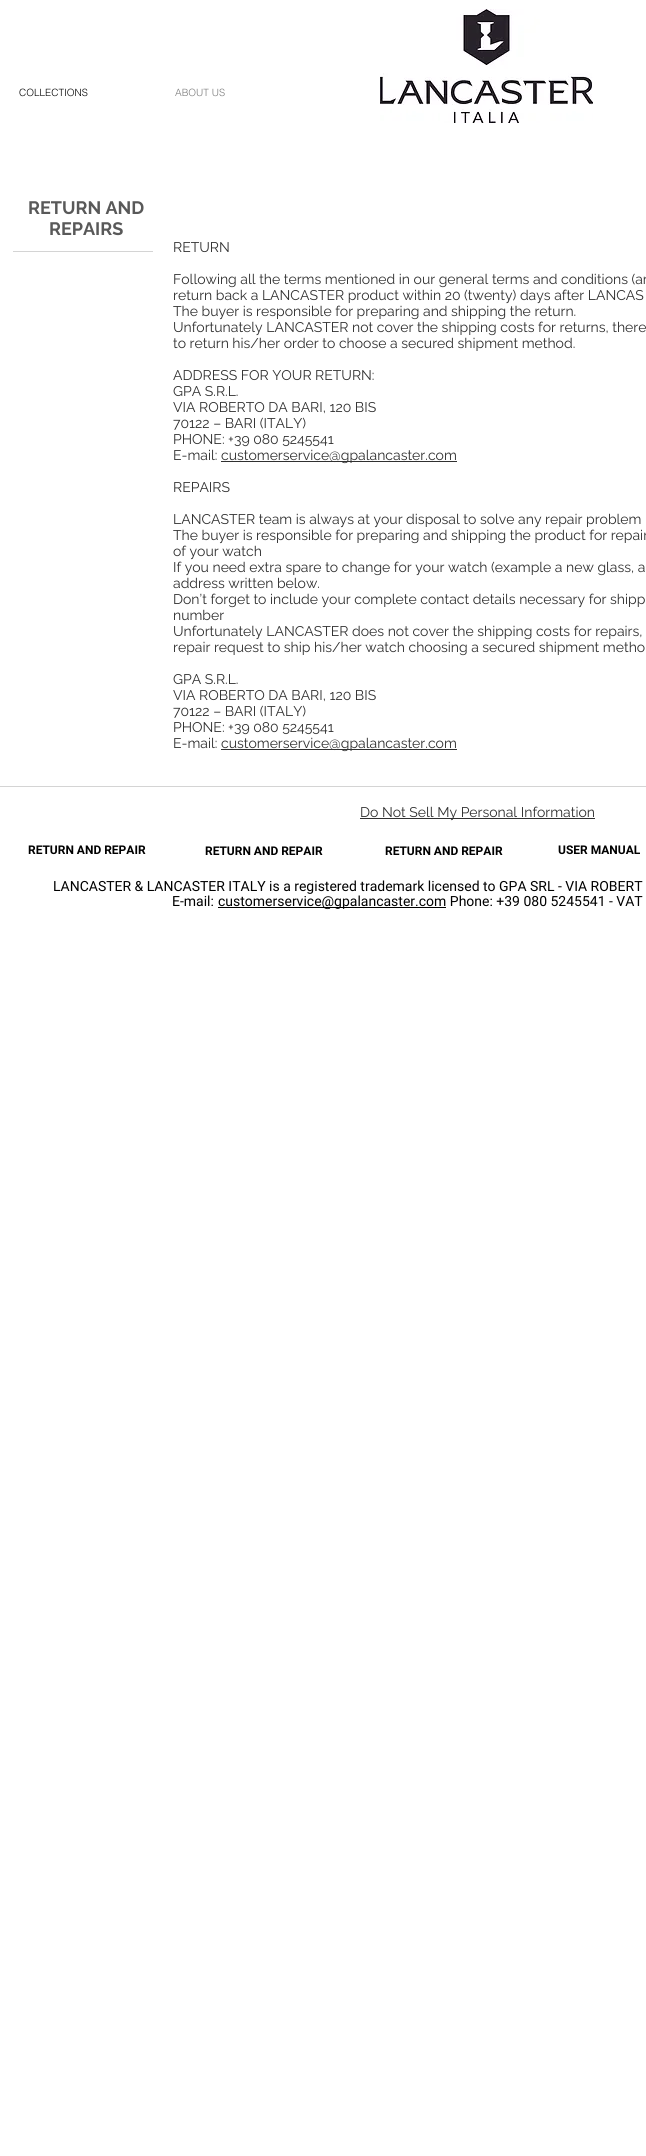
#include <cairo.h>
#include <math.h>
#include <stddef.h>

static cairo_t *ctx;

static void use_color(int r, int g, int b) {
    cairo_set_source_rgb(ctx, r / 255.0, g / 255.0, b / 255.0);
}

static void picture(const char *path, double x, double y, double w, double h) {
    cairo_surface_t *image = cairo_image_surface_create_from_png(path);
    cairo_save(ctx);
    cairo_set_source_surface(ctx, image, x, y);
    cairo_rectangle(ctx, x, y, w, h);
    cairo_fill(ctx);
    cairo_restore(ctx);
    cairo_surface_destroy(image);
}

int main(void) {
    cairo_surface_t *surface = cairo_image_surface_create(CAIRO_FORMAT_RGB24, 646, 2156);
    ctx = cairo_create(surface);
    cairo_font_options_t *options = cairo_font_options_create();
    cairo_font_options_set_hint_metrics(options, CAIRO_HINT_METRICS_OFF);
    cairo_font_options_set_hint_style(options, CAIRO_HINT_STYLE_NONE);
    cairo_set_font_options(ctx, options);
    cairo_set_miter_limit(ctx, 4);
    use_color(255, 255, 255);
    cairo_paint(ctx);
    cairo_select_font_face(ctx, "helvetica Light", CAIRO_FONT_SLANT_NORMAL, CAIRO_FONT_WEIGHT_NORMAL);
    cairo_set_font_size(ctx, 10);
    use_color(0, 0, 0);
    cairo_move_to(ctx, 19, 96);
    cairo_show_text(ctx, "COLLECTIONS");
    use_color(122, 122, 122);
    cairo_move_to(ctx, 175, 96);
    cairo_show_text(ctx, "ABOUT US");
    picture("img1.png", 380, 9, 213, 114);
    cairo_select_font_face(ctx, "Raleway", CAIRO_FONT_SLANT_NORMAL, CAIRO_FONT_WEIGHT_BOLD);
    cairo_set_font_size(ctx, 18);
    use_color(89, 89, 89);
    cairo_move_to(ctx, 28, 214);
    cairo_show_text(ctx, "RETURN AND");
    cairo_move_to(ctx, 49, 235);
    cairo_show_text(ctx, "REPAIRS");
    use_color(212, 212, 212);
    cairo_rectangle(ctx, 13, 251, 140, 1);
    cairo_fill(ctx);
    cairo_select_font_face(ctx, "Raleway", CAIRO_FONT_SLANT_NORMAL, CAIRO_FONT_WEIGHT_NORMAL);
    cairo_set_font_size(ctx, 14);
    use_color(48, 48, 48);
    cairo_move_to(ctx, 173, 252);
    cairo_show_text(ctx, "RETURN");
    cairo_move_to(ctx, 173, 284);
    cairo_show_text(ctx, "Following all the terms mentioned in our general terms and conditions (ar");
    cairo_move_to(ctx, 173, 300);
    cairo_show_text(ctx, "return back a LANCASTER product within 20 (twenty) days after LANCAS");
    cairo_move_to(ctx, 173, 316);
    cairo_show_text(ctx, "The buyer is responsible for preparing and shipping the return.");
    cairo_move_to(ctx, 173, 332);
    cairo_show_text(ctx, "Unfortunately LANCASTER not cover the shipping costs for returns, there");
    cairo_move_to(ctx, 173, 348);
    cairo_show_text(ctx, "to return his/her order to choose a secured shipment method.");
    cairo_move_to(ctx, 173, 380);
    cairo_show_text(ctx, "ADDRESS FOR YOUR RETURN:");
    cairo_move_to(ctx, 173, 396);
    cairo_show_text(ctx, "GPA S.R.L.");
    cairo_move_to(ctx, 173, 412);
    cairo_show_text(ctx, "VIA ROBERTO DA BARI, 120 BIS");
    cairo_move_to(ctx, 173, 428);
    cairo_show_text(ctx, "70122 – BARI (ITALY)");
    cairo_move_to(ctx, 173, 444);
    cairo_show_text(ctx, "PHONE: +39 080 5245541");
    cairo_move_to(ctx, 173, 460);
    cairo_show_text(ctx, "E-mail:");
    cairo_rectangle(ctx, 221, 461, 236, 1);
    cairo_fill(ctx);
    cairo_move_to(ctx, 221, 460);
    cairo_show_text(ctx, "customerservice@gpalancaster.com");
    cairo_move_to(ctx, 173, 492);
    cairo_show_text(ctx, "REPAIRS");
    cairo_move_to(ctx, 173, 524);
    cairo_show_text(ctx, "LANCASTER team is always at your disposal to solve any repair problem");
    cairo_move_to(ctx, 173, 540);
    cairo_show_text(ctx, "The buyer is responsible for preparing and shipping the product for repair");
    cairo_move_to(ctx, 173, 556);
    cairo_show_text(ctx, "of your watch");
    cairo_move_to(ctx, 173, 572);
    cairo_show_text(ctx, "If you need extra spare to change for your watch (example a new glass, a");
    cairo_move_to(ctx, 173, 588);
    cairo_show_text(ctx, "address written below.");
    cairo_move_to(ctx, 173, 604);
    cairo_show_text(ctx, "Don’t forget to include your complete contact details necessary for shipp");
    cairo_move_to(ctx, 173, 620);
    cairo_show_text(ctx, "number");
    cairo_move_to(ctx, 173, 636);
    cairo_show_text(ctx, "Unfortunately LANCASTER does not cover the shipping costs for repairs,");
    cairo_move_to(ctx, 173, 652);
    cairo_show_text(ctx, "repair request to ship his/her watch choosing a secured shipment metho");
    cairo_move_to(ctx, 173, 684);
    cairo_show_text(ctx, "GPA S.R.L.");
    cairo_move_to(ctx, 173, 700);
    cairo_show_text(ctx, "VIA ROBERTO DA BARI, 120 BIS");
    cairo_move_to(ctx, 173, 716);
    cairo_show_text(ctx, "70122 – BARI (ITALY)");
    cairo_move_to(ctx, 173, 732);
    cairo_show_text(ctx, "PHONE: +39 080 5245541");
    cairo_move_to(ctx, 173, 748);
    cairo_show_text(ctx, "E-mail:");
    cairo_rectangle(ctx, 221, 749, 236, 1);
    cairo_fill(ctx);
    cairo_move_to(ctx, 221, 748);
    cairo_show_text(ctx, "customerservice@gpalancaster.com");
    use_color(212, 212, 212);
    cairo_rectangle(ctx, 0, 786, 646, 1);
    cairo_fill(ctx);
    use_color(48, 48, 48);
    cairo_rectangle(ctx, 360, 818, 235, 1);
    cairo_fill(ctx);
    cairo_move_to(ctx, 360, 817);
    cairo_show_text(ctx, "Do Not Sell My Personal Information");
    cairo_select_font_face(ctx, "Roboto", CAIRO_FONT_SLANT_NORMAL, CAIRO_FONT_WEIGHT_BOLD);
    cairo_set_font_size(ctx, 12);
    use_color(0, 0, 0);
    cairo_move_to(ctx, 28, 854);
    cairo_show_text(ctx, "RETURN AND REPAIR");
    cairo_move_to(ctx, 205, 855);
    cairo_show_text(ctx, "RETURN AND REPAIR");
    cairo_move_to(ctx, 385, 855);
    cairo_show_text(ctx, "RETURN AND REPAIR");
    cairo_move_to(ctx, 558, 854);
    cairo_show_text(ctx, "USER MANUAL");
    cairo_select_font_face(ctx, "Roboto", CAIRO_FONT_SLANT_NORMAL, CAIRO_FONT_WEIGHT_NORMAL);
    cairo_set_font_size(ctx, 14);
    cairo_move_to(ctx, 53, 891);
    cairo_show_text(ctx, "LANCASTER & LANCASTER ITALY is a registered trademark licensed to GPA SRL - VIA ROBERT");
    cairo_move_to(ctx, 172, 906);
    cairo_show_text(ctx, "E-mail:");
    cairo_rectangle(ctx, 218, 907, 228, 1);
    cairo_fill(ctx);
    cairo_move_to(ctx, 218, 906);
    cairo_show_text(ctx, "customerservice@gpalancaster.com Phone: +39 080 5245541 - VAT");
    cairo_surface_write_to_png(surface, "result.png");
    cairo_font_options_destroy(options);
    cairo_destroy(ctx);
    cairo_surface_destroy(surface);
    return 0;
}
